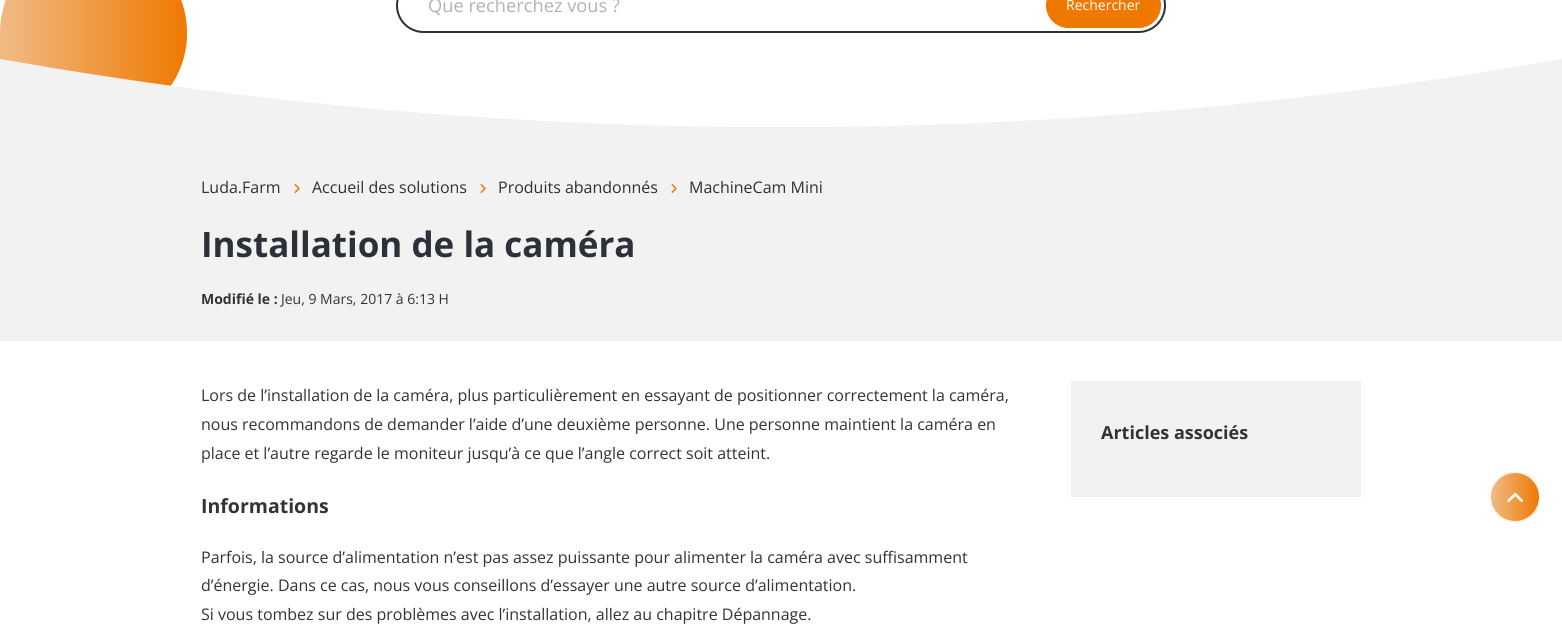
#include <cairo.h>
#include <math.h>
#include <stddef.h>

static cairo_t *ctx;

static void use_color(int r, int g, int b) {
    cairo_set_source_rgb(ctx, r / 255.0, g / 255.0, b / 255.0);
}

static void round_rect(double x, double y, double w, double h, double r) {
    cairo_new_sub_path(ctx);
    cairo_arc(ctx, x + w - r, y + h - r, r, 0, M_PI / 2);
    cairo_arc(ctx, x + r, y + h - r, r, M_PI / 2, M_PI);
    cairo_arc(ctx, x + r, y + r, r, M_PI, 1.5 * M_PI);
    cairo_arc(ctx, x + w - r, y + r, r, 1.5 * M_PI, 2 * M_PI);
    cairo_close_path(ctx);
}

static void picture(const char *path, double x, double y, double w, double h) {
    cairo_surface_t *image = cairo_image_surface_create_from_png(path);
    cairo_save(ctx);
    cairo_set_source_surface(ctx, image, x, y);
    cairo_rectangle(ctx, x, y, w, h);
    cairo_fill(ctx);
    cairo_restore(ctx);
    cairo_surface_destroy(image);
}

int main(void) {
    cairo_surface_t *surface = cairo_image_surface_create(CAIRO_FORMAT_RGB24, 1562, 624);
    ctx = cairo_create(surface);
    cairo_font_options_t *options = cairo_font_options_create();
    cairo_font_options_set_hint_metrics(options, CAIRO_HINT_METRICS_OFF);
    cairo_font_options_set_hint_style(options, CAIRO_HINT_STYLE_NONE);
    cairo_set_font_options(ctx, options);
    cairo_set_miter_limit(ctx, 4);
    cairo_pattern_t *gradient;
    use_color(255, 255, 255);
    cairo_paint(ctx);
    gradient = cairo_pattern_create_linear(0, 33, 187, 33);
    cairo_pattern_add_color_stop_rgba(gradient, 0, 0.941, 0.733, 0.525, 1);
    cairo_pattern_add_color_stop_rgba(gradient, 1, 0.937, 0.475, 0, 1);
    cairo_set_source(ctx, gradient);
    cairo_pattern_destroy(gradient);
    cairo_new_path(ctx);
    cairo_move_to(ctx, 93.5, -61);
    cairo_curve_to(ctx, 145, -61, 187, -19, 187, 32.5);
    cairo_line_to(ctx, 187, 33.5);
    cairo_curve_to(ctx, 187, 85, 145, 127, 93.5, 127);
    cairo_line_to(ctx, 0, 127);
    cairo_line_to(ctx, 0, 32.5);
    cairo_curve_to(ctx, 0, -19, 42, -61, 93.5, -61);
    cairo_close_path(ctx);
    cairo_fill(ctx);
    round_rect(397, -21, 768, 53, 26.5);
    use_color(44, 48, 56);
    cairo_stroke(ctx);
    cairo_select_font_face(ctx, "Open Sans", CAIRO_FONT_SLANT_NORMAL, CAIRO_FONT_WEIGHT_NORMAL);
    cairo_set_font_size(ctx, 18.25);
    use_color(178, 178, 178);
    cairo_move_to(ctx, 428, 12);
    cairo_show_text(ctx, "Que recherchez vous ?");
    use_color(239, 121, 0);
    round_rect(1046.5, -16.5, 114, 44, 22);
    cairo_fill_preserve(ctx);
    cairo_set_line_width(ctx, 1);
    cairo_stroke(ctx);
    cairo_set_font_size(ctx, 14);
    use_color(255, 255, 255);
    cairo_move_to(ctx, 1066, 10);
    cairo_show_text(ctx, "Rechercher");
    use_color(242, 242, 242);
    cairo_rectangle(ctx, 0, 127, 1562, 214);
    cairo_fill(ctx);
    cairo_new_path(ctx);
    cairo_move_to(ctx, 0, 59);
    cairo_curve_to(ctx, 515, 150, 1047, 150, 1562, 59);
    cairo_line_to(ctx, 1562, 129);
    cairo_line_to(ctx, 0, 129);
    cairo_close_path(ctx);
    cairo_fill(ctx);
    cairo_set_font_size(ctx, 16);
    use_color(44, 48, 56);
    cairo_move_to(ctx, 201, 193);
    cairo_show_text(ctx, "Luda.Farm");
    picture("img1.png", 294, 184, 6, 9);
    cairo_move_to(ctx, 312, 193);
    cairo_show_text(ctx, "Accueil des solutions");
    picture("img1.png", 480, 184, 6, 9);
    cairo_move_to(ctx, 498, 193);
    cairo_show_text(ctx, "Produits abandonnés");
    picture("img1.png", 671, 184, 6, 9);
    cairo_move_to(ctx, 689, 193);
    cairo_show_text(ctx, "MachineCam Mini");
    cairo_select_font_face(ctx, "Open Sans", CAIRO_FONT_SLANT_NORMAL, CAIRO_FONT_WEIGHT_BOLD);
    cairo_set_font_size(ctx, 35);
    cairo_move_to(ctx, 201, 257);
    cairo_show_text(ctx, "Installation de la caméra");
    cairo_set_font_size(ctx, 14);
    use_color(51, 51, 51);
    cairo_move_to(ctx, 201, 304);
    cairo_show_text(ctx, "Modifié le :");
    cairo_select_font_face(ctx, "Open Sans", CAIRO_FONT_SLANT_NORMAL, CAIRO_FONT_WEIGHT_NORMAL);
    cairo_move_to(ctx, 281, 304);
    cairo_show_text(ctx, "Jeu, 9 Mars, 2017 à 6:13 H");
    cairo_set_font_size(ctx, 16);
    cairo_move_to(ctx, 201, 401);
    cairo_show_text(ctx, "Lors de l’installation de la caméra, plus particulièrement en essayant de positionner correctement la caméra,");
    cairo_move_to(ctx, 201, 430);
    cairo_show_text(ctx, "nous recommandons de demander l’aide d’une deuxième personne. Une personne maintient la caméra en");
    cairo_move_to(ctx, 201, 459);
    cairo_show_text(ctx, "place et l’autre regarde le moniteur jusqu’à ce que l’angle correct soit atteint.");
    cairo_select_font_face(ctx, "Open Sans", CAIRO_FONT_SLANT_NORMAL, CAIRO_FONT_WEIGHT_BOLD);
    cairo_set_font_size(ctx, 19.5);
    cairo_move_to(ctx, 201, 513);
    cairo_show_text(ctx, "Informations");
    cairo_select_font_face(ctx, "Open Sans", CAIRO_FONT_SLANT_NORMAL, CAIRO_FONT_WEIGHT_NORMAL);
    cairo_set_font_size(ctx, 16);
    cairo_move_to(ctx, 201, 563);
    cairo_show_text(ctx, "Parfois, la source d’alimentation n’est pas assez puissante pour alimenter la caméra avec suffisamment");
    cairo_move_to(ctx, 201, 591);
    cairo_show_text(ctx, "d’énergie. Dans ce cas, nous vous conseillons d’essayer une autre source d’alimentation.");
    cairo_move_to(ctx, 201, 620);
    cairo_show_text(ctx, "Si vous tombez sur des problèmes avec l’installation, allez au chapitre Dépannage.");
    use_color(242, 242, 242);
    cairo_rectangle(ctx, 1071, 381, 290, 116);
    cairo_fill(ctx);
    cairo_select_font_face(ctx, "Open Sans", CAIRO_FONT_SLANT_NORMAL, CAIRO_FONT_WEIGHT_BOLD);
    cairo_set_font_size(ctx, 18);
    use_color(51, 51, 51);
    cairo_move_to(ctx, 1101, 439);
    cairo_show_text(ctx, "Articles associés");
    cairo_save(ctx);
    round_rect(1490, 472, 50, 50, 25);
    cairo_clip(ctx);
    gradient = cairo_pattern_create_linear(1491, 497, 1539, 497);
    cairo_pattern_add_color_stop_rgba(gradient, 0, 0.941, 0.733, 0.525, 1);
    cairo_pattern_add_color_stop_rgba(gradient, 1, 0.937, 0.475, 0, 1);
    cairo_set_source(ctx, gradient);
    cairo_pattern_destroy(gradient);
    cairo_rectangle(ctx, 1491, 472, 48, 50);
    cairo_fill(ctx);
    cairo_restore(ctx);
    cairo_arc(ctx, 1515, 497, 24.5, 0, 2 * M_PI);
    use_color(255, 255, 255);
    cairo_stroke(ctx);
    picture("img2.png", 1507, 492, 16, 10);
    cairo_surface_write_to_png(surface, "result.png");
    cairo_font_options_destroy(options);
    cairo_destroy(ctx);
    cairo_surface_destroy(surface);
    return 0;
}
